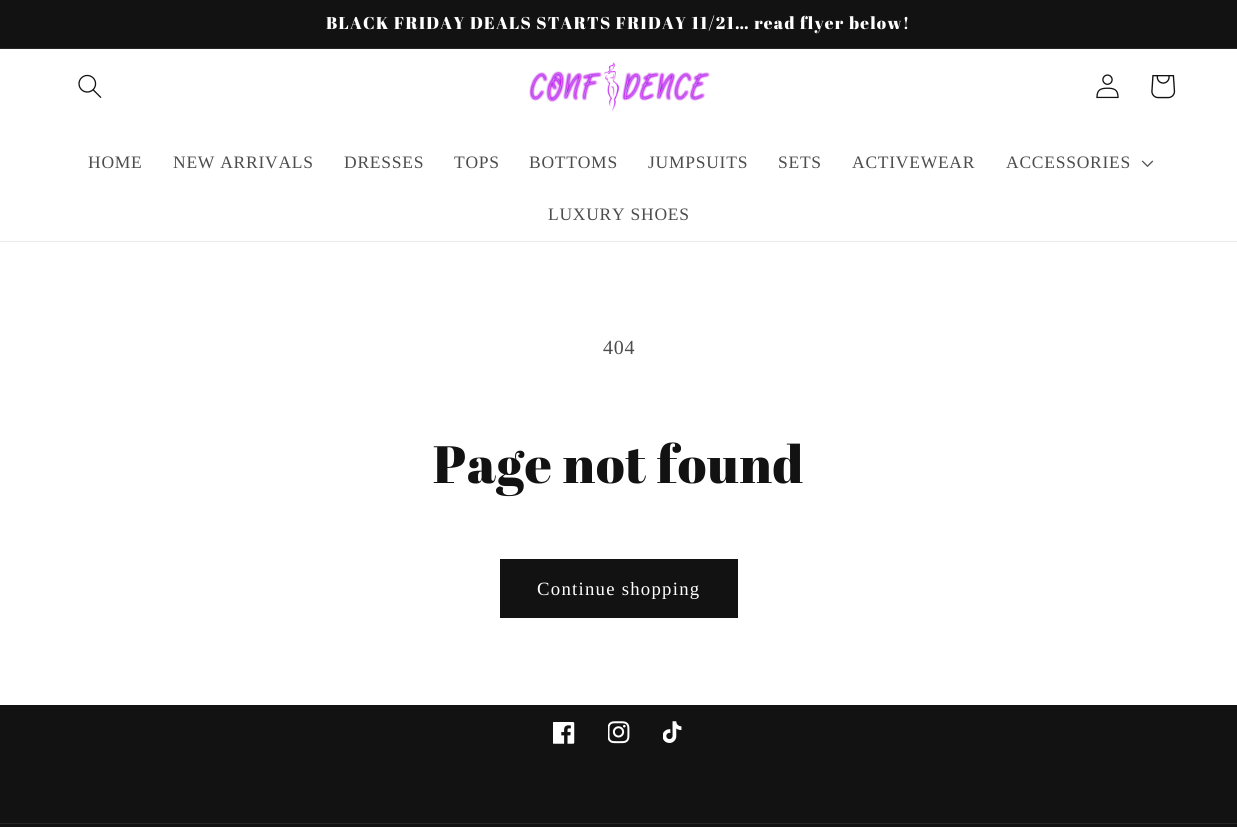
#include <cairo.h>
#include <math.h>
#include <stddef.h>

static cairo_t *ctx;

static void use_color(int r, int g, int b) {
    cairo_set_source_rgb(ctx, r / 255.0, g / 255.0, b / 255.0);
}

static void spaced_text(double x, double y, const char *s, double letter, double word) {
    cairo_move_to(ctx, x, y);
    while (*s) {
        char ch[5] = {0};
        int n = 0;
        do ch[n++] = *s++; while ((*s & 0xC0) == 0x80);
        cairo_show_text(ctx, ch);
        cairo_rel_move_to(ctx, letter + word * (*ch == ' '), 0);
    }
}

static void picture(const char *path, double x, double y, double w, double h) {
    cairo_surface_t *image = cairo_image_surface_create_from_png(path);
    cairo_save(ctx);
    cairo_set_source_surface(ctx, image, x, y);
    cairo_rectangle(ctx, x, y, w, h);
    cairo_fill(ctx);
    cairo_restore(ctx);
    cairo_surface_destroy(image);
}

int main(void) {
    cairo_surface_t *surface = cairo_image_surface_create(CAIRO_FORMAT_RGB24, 1237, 827);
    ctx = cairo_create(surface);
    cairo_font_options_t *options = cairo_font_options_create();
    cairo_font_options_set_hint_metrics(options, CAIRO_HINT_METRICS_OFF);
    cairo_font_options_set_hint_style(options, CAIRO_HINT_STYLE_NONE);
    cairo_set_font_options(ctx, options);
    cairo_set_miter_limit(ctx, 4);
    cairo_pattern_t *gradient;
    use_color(255, 255, 255);
    cairo_paint(ctx);
    use_color(18, 18, 18);
    cairo_rectangle(ctx, 0, 0, 1237, 48);
    cairo_fill(ctx);
    use_color(37, 37, 37);
    cairo_rectangle(ctx, 0, 48, 1237, 1);
    cairo_fill(ctx);
    cairo_select_font_face(ctx, "Abril Fatface", CAIRO_FONT_SLANT_NORMAL, CAIRO_FONT_WEIGHT_NORMAL);
    cairo_set_font_size(ctx, 17.05);
    use_color(255, 255, 255);
    spaced_text(326, 29, "BLACK FRIDAY DEALS STARTS FRIDAY 11/21… read flyer below!", 1.25, 0);
    use_color(236, 236, 236);
    cairo_rectangle(ctx, 0, 241, 1237, 1);
    cairo_fill(ctx);
    picture("img1.png", 78, 74, 24, 24);
    picture("img2.png", 529, 62, 181, 49);
    picture("img3.png", 1096, 74, 23, 25);
    picture("img4.png", 1151, 75, 25, 24);
    cairo_select_font_face(ctx, "Liberation Serif", CAIRO_FONT_SLANT_NORMAL, CAIRO_FONT_WEIGHT_NORMAL);
    cairo_set_font_size(ctx, 17.5);
    use_color(77, 77, 77);
    spaced_text(88, 168, "HOME", 0.75, 0);
    spaced_text(173, 168, "NEW ARRIVALS", 0.75, 0);
    spaced_text(344, 168, "DRESSES", 0.75, 0);
    spaced_text(454, 168, "TOPS", 0.75, 0);
    spaced_text(529, 168, "BOTTOMS", 0.75, 0);
    spaced_text(648, 168, "JUMPSUITS", 0.75, 0);
    spaced_text(778, 168, "SETS", 0.75, 0);
    spaced_text(852, 168, "ACTIVEWEAR", 0.75, 0);
    spaced_text(1006, 168, "ACCESSORIES", 0.75, 0);
    picture("img5.png", 1141, 160, 13, 7);
    spaced_text(548, 220, "LUXURY SHOES", 0.75, 0);
    cairo_set_font_size(ctx, 20);
    spaced_text(603, 354, "404", 0.75, 0);
    cairo_select_font_face(ctx, "Abril Fatface", CAIRO_FONT_SLANT_NORMAL, CAIRO_FONT_WEIGHT_NORMAL);
    cairo_set_font_size(ctx, 52.5);
    use_color(18, 18, 18);
    spaced_text(433, 483, "Page not found", 0.75, 0);
    cairo_rectangle(ctx, 500, 559, 238, 59);
    cairo_fill(ctx);
    cairo_select_font_face(ctx, "Liberation Serif", CAIRO_FONT_SLANT_NORMAL, CAIRO_FONT_WEIGHT_NORMAL);
    cairo_set_font_size(ctx, 18.75);
    use_color(255, 255, 255);
    spaced_text(537, 595, "Continue shopping", 1.25, 0);
    gradient = cairo_pattern_create_radial(0, 0, 0, 0, 0, 1);
    cairo_pattern_set_matrix(gradient, &(cairo_matrix_t){1.0 / 875, 0, 0, 1.0 / 585, -1.0 * 619 / 875, -1.0 * 414 / 585});
    cairo_pattern_add_color_stop_rgba(gradient, 0, 0.071, 0.071, 0.071, 1);
    cairo_pattern_add_color_stop_rgba(gradient, 1, 0.071, 0.071, 0.071, 1);
    cairo_pattern_add_color_stop_rgba(gradient, 1, 1, 1, 1, 1);
    cairo_set_source(ctx, gradient);
    cairo_pattern_destroy(gradient);
    cairo_rectangle(ctx, 0, 705, 1237, 122);
    cairo_fill(ctx);
    picture("img6.png", 553, 722, 22, 22);
    picture("img7.png", 608, 721, 22, 23);
    picture("img8.png", 663, 721, 19, 22);
    use_color(37, 37, 37);
    cairo_rectangle(ctx, 0, 823, 1237, 1);
    cairo_fill(ctx);
    cairo_surface_write_to_png(surface, "result.png");
    cairo_font_options_destroy(options);
    cairo_destroy(ctx);
    cairo_surface_destroy(surface);
    return 0;
}
